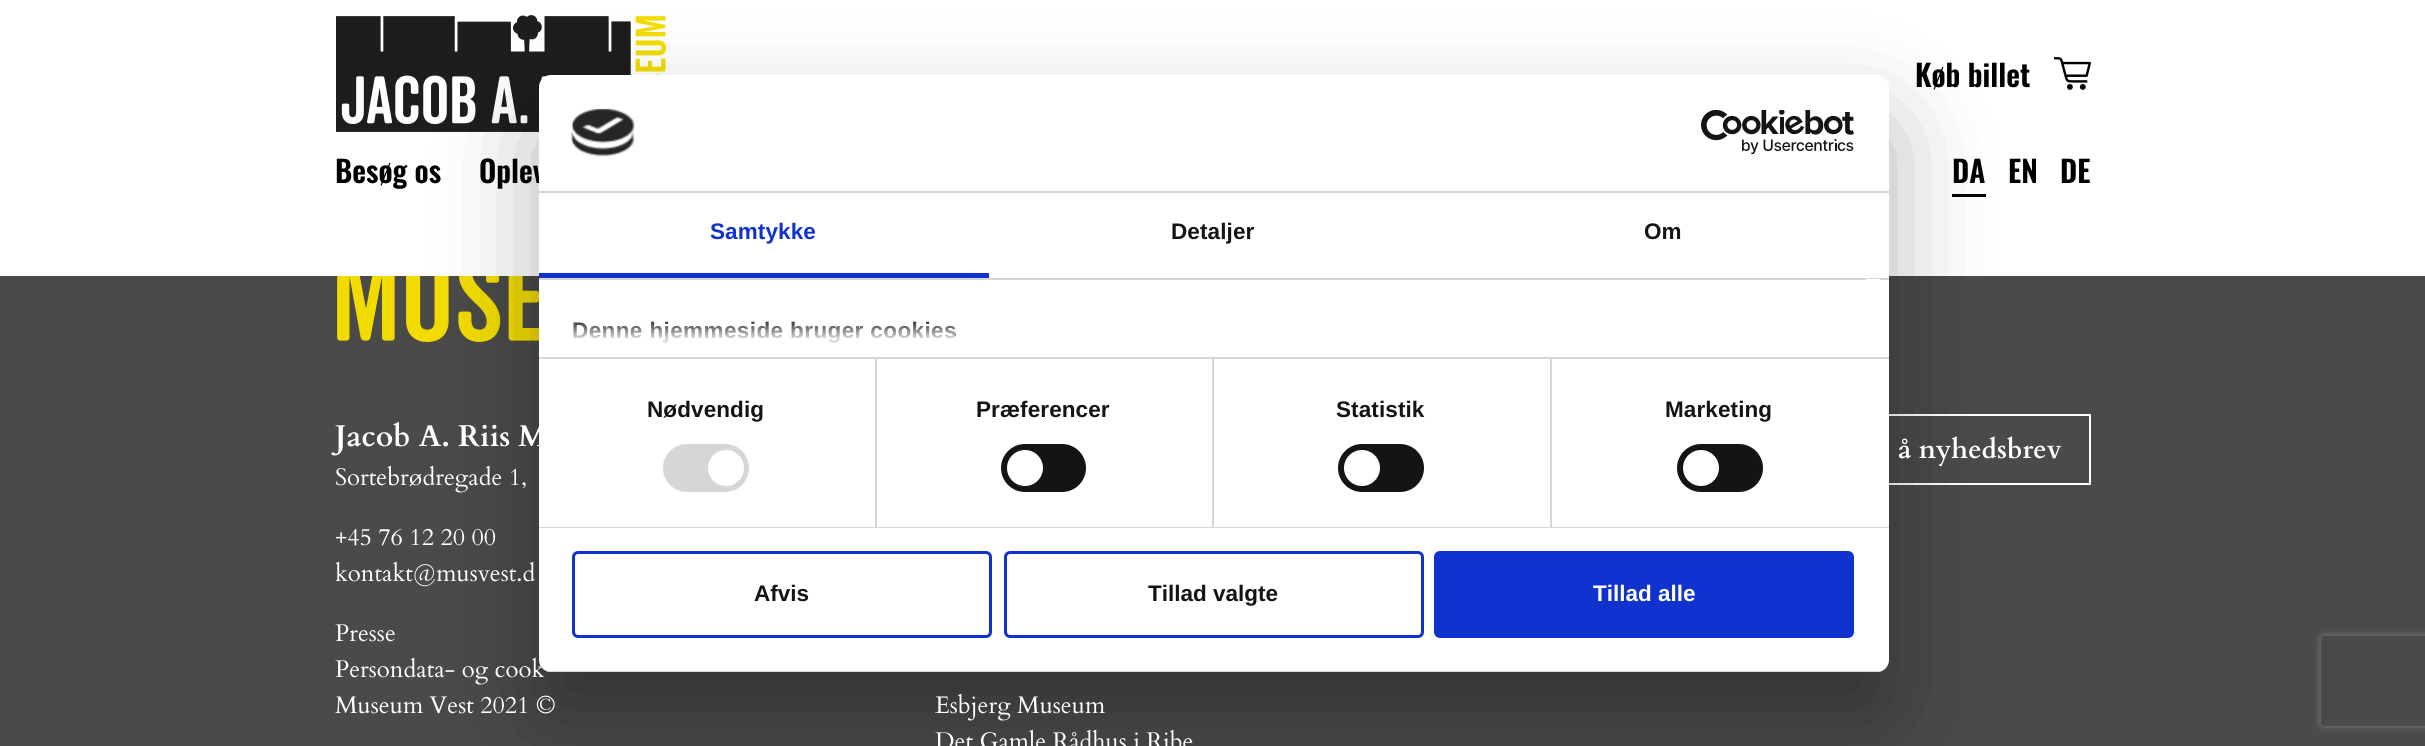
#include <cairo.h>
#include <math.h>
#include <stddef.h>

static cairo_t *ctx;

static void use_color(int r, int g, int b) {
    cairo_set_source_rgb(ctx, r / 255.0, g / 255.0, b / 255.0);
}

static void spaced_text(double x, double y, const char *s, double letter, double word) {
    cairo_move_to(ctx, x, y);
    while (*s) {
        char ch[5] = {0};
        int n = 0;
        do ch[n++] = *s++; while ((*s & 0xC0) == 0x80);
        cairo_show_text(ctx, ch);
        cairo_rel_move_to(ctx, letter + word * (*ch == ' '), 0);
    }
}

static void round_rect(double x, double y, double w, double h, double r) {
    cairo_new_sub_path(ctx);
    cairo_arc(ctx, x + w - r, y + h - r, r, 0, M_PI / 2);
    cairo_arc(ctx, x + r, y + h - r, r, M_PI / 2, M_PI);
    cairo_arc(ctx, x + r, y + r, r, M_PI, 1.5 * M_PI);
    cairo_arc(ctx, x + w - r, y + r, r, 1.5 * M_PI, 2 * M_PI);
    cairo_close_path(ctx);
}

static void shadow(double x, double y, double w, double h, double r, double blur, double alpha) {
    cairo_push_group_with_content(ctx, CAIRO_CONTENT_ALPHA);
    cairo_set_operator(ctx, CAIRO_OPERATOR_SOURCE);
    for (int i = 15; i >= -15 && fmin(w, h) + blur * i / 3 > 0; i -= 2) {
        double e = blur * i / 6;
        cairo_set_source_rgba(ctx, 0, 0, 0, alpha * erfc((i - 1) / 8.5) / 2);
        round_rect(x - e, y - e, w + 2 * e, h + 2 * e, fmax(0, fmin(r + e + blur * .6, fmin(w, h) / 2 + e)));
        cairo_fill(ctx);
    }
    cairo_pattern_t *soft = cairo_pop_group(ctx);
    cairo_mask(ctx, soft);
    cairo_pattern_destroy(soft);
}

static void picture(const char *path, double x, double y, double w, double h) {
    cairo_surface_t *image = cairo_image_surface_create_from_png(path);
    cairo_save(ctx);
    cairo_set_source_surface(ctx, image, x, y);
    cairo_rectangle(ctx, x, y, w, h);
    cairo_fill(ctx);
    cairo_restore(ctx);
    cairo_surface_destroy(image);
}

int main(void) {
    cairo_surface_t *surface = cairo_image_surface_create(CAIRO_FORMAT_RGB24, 2425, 746);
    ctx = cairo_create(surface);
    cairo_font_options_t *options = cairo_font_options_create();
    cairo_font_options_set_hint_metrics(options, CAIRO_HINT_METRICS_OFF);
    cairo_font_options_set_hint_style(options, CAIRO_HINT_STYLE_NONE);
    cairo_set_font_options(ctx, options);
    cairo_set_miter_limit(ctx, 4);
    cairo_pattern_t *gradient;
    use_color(74, 74, 73);
    cairo_paint(ctx);
    use_color(255, 255, 255);
    cairo_rectangle(ctx, 0, 0, 2425, 276);
    cairo_fill(ctx);
    picture("img1.png", 336, 15, 330, 117);
    cairo_select_font_face(ctx, "Oswald SemiBold", CAIRO_FONT_SLANT_NORMAL, CAIRO_FONT_WEIGHT_NORMAL);
    cairo_set_font_size(ctx, 30);
    use_color(0, 0, 0);
    cairo_move_to(ctx, 1915, 87);
    cairo_show_text(ctx, "Køb billet");
    picture("img2.png", 2054, 57, 37, 33);
    cairo_move_to(ctx, 335, 183);
    cairo_show_text(ctx, "Besøg os");
    cairo_move_to(ctx, 479, 183);
    cairo_show_text(ctx, "Oplev");
    cairo_move_to(ctx, 1952, 183);
    cairo_show_text(ctx, "DA");
    cairo_rectangle(ctx, 1952, 194, 34, 3);
    cairo_fill(ctx);
    cairo_move_to(ctx, 2008, 183);
    cairo_show_text(ctx, "EN");
    cairo_move_to(ctx, 2060, 183);
    cairo_show_text(ctx, "DE");
    picture("img5.png", 337, 276, 202, 66);
    cairo_rectangle(ctx, 1855, 415, 235, 69);
    use_color(255, 255, 255);
    cairo_stroke(ctx);
    use_color(0, 0, 0);
    shadow(539, 123, 1350, 597, 12, 51, 0.3);
    use_color(255, 255, 255);
    round_rect(539, 75, 1350, 597, 12);
    cairo_fill(ctx);
    use_color(214, 214, 214);
    cairo_rectangle(ctx, 539, 191, 1350, 2);
    cairo_fill(ctx);
    picture("img3.png", 571, 108, 64, 49);
    picture("img4.png", 1701, 110, 153, 45);
    cairo_rectangle(ctx, 539, 278, 1350, 2);
    cairo_fill(ctx);
    use_color(16, 50, 207);
    cairo_rectangle(ctx, 539, 273, 450, 5);
    cairo_fill(ctx);
    cairo_select_font_face(ctx, "Liberation Sans", CAIRO_FONT_SLANT_NORMAL, CAIRO_FONT_WEIGHT_BOLD);
    cairo_set_font_size(ctx, 22.5);
    spaced_text(710, 239, "Samtykke", 0.1, 0);
    use_color(20, 20, 20);
    spaced_text(1171, 239, "Detaljer", 0.1, 0);
    spaced_text(1644, 239, "Om", 0.1, 0);
    use_color(214, 214, 214);
    cairo_rectangle(ctx, 539, 357, 1350, 2);
    cairo_fill(ctx);
    use_color(255, 255, 255);
    cairo_rectangle(ctx, 1866, 279, 14, 1);
    cairo_fill(ctx);
    use_color(20, 20, 20);
    spaced_text(572, 338, "Denne hjemmeside bruger cookies", 0.4, 0);
    gradient = cairo_pattern_create_linear(1198, 357, 1198, 318);
    cairo_pattern_add_color_stop_rgba(gradient, 0, 1, 1, 1, 1);
    cairo_pattern_add_color_stop_rgba(gradient, 0.5, 1, 1, 1, 0.8);
    cairo_pattern_add_color_stop_rgba(gradient, 1, 1, 1, 1, 0);
    cairo_set_source(ctx, gradient);
    cairo_pattern_destroy(gradient);
    cairo_rectangle(ctx, 573, 321, 382, 22);
    cairo_fill(ctx);
    use_color(214, 214, 214);
    cairo_rectangle(ctx, 539, 527, 1350, 1);
    cairo_fill(ctx);
    cairo_rectangle(ctx, 875, 359, 2, 168);
    cairo_fill(ctx);
    use_color(20, 20, 20);
    spaced_text(647, 417, "Nødvendig", 0.1, 0);
    use_color(214, 214, 214);
    round_rect(663, 444, 86, 48, 24);
    cairo_fill(ctx);
    use_color(255, 255, 255);
    cairo_arc(ctx, 726, 468, 18, 0, 2 * M_PI);
    cairo_fill(ctx);
    use_color(214, 214, 214);
    cairo_rectangle(ctx, 1212, 359, 2, 168);
    cairo_fill(ctx);
    use_color(20, 20, 20);
    spaced_text(976, 417, "Præferencer", 0.1, 0);
    round_rect(1001, 444, 85, 48, 24);
    cairo_fill(ctx);
    use_color(255, 255, 255);
    cairo_arc(ctx, 1025, 468, 18, 0, 2 * M_PI);
    cairo_fill(ctx);
    use_color(214, 214, 214);
    cairo_rectangle(ctx, 1550, 359, 2, 168);
    cairo_fill(ctx);
    use_color(20, 20, 20);
    spaced_text(1336, 417, "Statistik", 0.1, 0);
    round_rect(1338, 444, 86, 48, 24);
    cairo_fill(ctx);
    use_color(255, 255, 255);
    cairo_arc(ctx, 1362, 468, 18, 0, 2 * M_PI);
    cairo_fill(ctx);
    use_color(20, 20, 20);
    spaced_text(1665, 417, "Marketing", 0.1, 0);
    round_rect(1677, 444, 86, 48, 24);
    cairo_fill(ctx);
    use_color(255, 255, 255);
    cairo_arc(ctx, 1701, 468, 18, 0, 2 * M_PI);
    cairo_fill(ctx);
    cairo_select_font_face(ctx, "Cardo", CAIRO_FONT_SLANT_NORMAL, CAIRO_FONT_WEIGHT_NORMAL);
    cairo_set_font_size(ctx, 24);
    cairo_move_to(ctx, 335, 677);
    cairo_show_text(ctx, "Persondata- og cook");
    cairo_save(ctx);
    round_rect(539, 75, 1350, 597, 12);
    cairo_clip(ctx);
    use_color(214, 214, 214);
    cairo_rectangle(ctx, 539, 671, 1350, 1);
    cairo_fill(ctx);
    cairo_restore(ctx);
    round_rect(573.5, 552.5, 417, 84, 4.5);
    use_color(16, 50, 207);
    cairo_set_line_width(ctx, 3);
    cairo_stroke(ctx);
    cairo_select_font_face(ctx, "Liberation Sans", CAIRO_FONT_SLANT_NORMAL, CAIRO_FONT_WEIGHT_BOLD);
    cairo_set_font_size(ctx, 22.5);
    use_color(20, 20, 20);
    cairo_move_to(ctx, 754, 601);
    cairo_show_text(ctx, "Afvis");
    round_rect(1005.5, 552.5, 417, 84, 4.5);
    use_color(16, 50, 207);
    cairo_stroke(ctx);
    use_color(20, 20, 20);
    cairo_move_to(ctx, 1148, 601);
    cairo_show_text(ctx, "Tillad valgte");
    use_color(16, 50, 207);
    round_rect(1435.5, 552.5, 417, 84, 4.5);
    cairo_fill_preserve(ctx);
    cairo_stroke(ctx);
    use_color(255, 255, 255);
    cairo_move_to(ctx, 1593, 601);
    cairo_show_text(ctx, "Tillad alle");
    cairo_select_font_face(ctx, "Cardo", CAIRO_FONT_SLANT_NORMAL, CAIRO_FONT_WEIGHT_BOLD);
    cairo_set_font_size(ctx, 30);
    cairo_move_to(ctx, 335, 446);
    cairo_show_text(ctx, "Jacob A. Riis M");
    cairo_select_font_face(ctx, "Cardo", CAIRO_FONT_SLANT_NORMAL, CAIRO_FONT_WEIGHT_NORMAL);
    cairo_set_font_size(ctx, 24);
    cairo_move_to(ctx, 335, 485);
    cairo_show_text(ctx, "Sortebrødregade 1,");
    cairo_move_to(ctx, 335, 545);
    cairo_show_text(ctx, "+45 76 12 20 00");
    cairo_move_to(ctx, 335, 581);
    cairo_show_text(ctx, "kontakt@musvest.d");
    cairo_move_to(ctx, 335, 641);
    cairo_show_text(ctx, "Presse");
    cairo_move_to(ctx, 335, 713);
    cairo_show_text(ctx, "Museum Vest 2021 ©");
    cairo_select_font_face(ctx, "Cardo", CAIRO_FONT_SLANT_NORMAL, CAIRO_FONT_WEIGHT_BOLD);
    cairo_set_font_size(ctx, 27);
    cairo_move_to(ctx, 1898, 458);
    cairo_show_text(ctx, "å nyhedsbrev");
    cairo_select_font_face(ctx, "Cardo", CAIRO_FONT_SLANT_NORMAL, CAIRO_FONT_WEIGHT_NORMAL);
    cairo_set_font_size(ctx, 24);
    cairo_move_to(ctx, 935, 713);
    cairo_show_text(ctx, "Esbjerg Museum");
    cairo_move_to(ctx, 935, 749);
    cairo_show_text(ctx, "Det Gamle Rådhus i Ribe");
    cairo_save(ctx);
    cairo_set_fill_rule(ctx, CAIRO_FILL_RULE_EVEN_ODD);
    cairo_new_path(ctx);
    cairo_move_to(ctx, 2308, 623);
    cairo_line_to(ctx, 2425, 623);
    cairo_line_to(ctx, 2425, 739);
    cairo_line_to(ctx, 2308, 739);
    cairo_close_path(ctx);
    cairo_move_to(ctx, 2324, 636);
    cairo_line_to(ctx, 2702, 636);
    cairo_curve_to(ctx, 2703.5, 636, 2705, 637.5, 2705, 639);
    cairo_line_to(ctx, 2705, 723);
    cairo_curve_to(ctx, 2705, 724.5, 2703.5, 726, 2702, 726);
    cairo_line_to(ctx, 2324, 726);
    cairo_curve_to(ctx, 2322.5, 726, 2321, 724.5, 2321, 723);
    cairo_line_to(ctx, 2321, 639);
    cairo_curve_to(ctx, 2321, 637.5, 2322.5, 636, 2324, 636);
    cairo_close_path(ctx);
    cairo_clip(ctx);
    use_color(128, 128, 128);
    shadow(2321, 636, 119, 90, 3, 4, 1);
    cairo_restore(ctx);
    cairo_surface_write_to_png(surface, "result.png");
    cairo_font_options_destroy(options);
    cairo_destroy(ctx);
    cairo_surface_destroy(surface);
    return 0;
}
